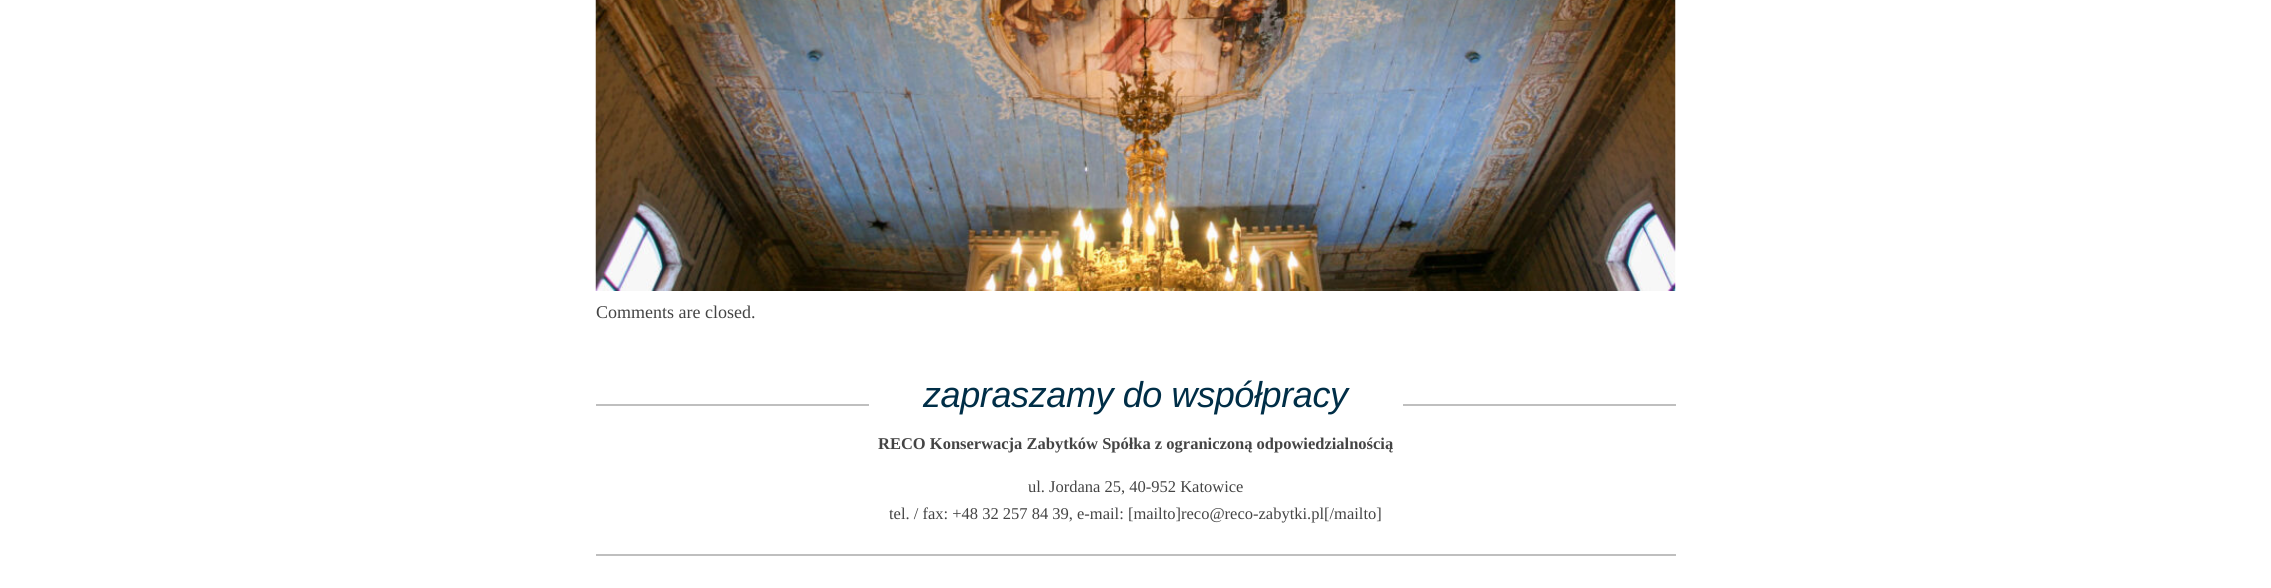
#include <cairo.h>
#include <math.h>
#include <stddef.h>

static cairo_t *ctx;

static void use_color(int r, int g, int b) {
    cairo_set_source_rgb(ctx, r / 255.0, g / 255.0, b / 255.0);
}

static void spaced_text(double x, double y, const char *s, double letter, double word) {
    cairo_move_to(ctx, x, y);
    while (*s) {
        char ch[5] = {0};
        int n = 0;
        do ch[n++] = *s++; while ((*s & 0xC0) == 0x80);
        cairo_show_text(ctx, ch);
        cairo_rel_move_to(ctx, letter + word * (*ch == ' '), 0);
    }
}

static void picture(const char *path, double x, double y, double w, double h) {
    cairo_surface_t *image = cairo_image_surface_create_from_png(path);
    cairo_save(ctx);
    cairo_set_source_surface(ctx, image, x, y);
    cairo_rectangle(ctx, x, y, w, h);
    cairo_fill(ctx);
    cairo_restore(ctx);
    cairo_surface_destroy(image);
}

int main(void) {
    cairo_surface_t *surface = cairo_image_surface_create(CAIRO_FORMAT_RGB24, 2271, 588);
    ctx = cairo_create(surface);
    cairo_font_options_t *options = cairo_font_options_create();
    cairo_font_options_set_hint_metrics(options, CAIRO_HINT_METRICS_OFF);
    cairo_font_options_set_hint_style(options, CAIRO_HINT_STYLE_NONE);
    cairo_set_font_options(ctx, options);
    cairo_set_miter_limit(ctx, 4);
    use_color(255, 255, 255);
    cairo_paint(ctx);
    picture("img1.png", 595, 0, 1081, 291);
    cairo_select_font_face(ctx, "Liberation Serif", CAIRO_FONT_SLANT_NORMAL, CAIRO_FONT_WEIGHT_NORMAL);
    cairo_set_font_size(ctx, 18);
    use_color(68, 68, 68);
    cairo_move_to(ctx, 596, 318);
    cairo_show_text(ctx, "Comments are closed.");
    use_color(191, 191, 191);
    cairo_rectangle(ctx, 596, 404, 1080, 2);
    cairo_fill(ctx);
    use_color(255, 255, 255);
    cairo_rectangle(ctx, 869, 404, 534, 2);
    cairo_fill(ctx);
    cairo_select_font_face(ctx, "Liberation Sans", CAIRO_FONT_SLANT_ITALIC, CAIRO_FONT_WEIGHT_NORMAL);
    cairo_set_font_size(ctx, 36);
    use_color(0, 46, 71);
    spaced_text(923, 407, "zapraszamy do współpracy", -0.4, 0);
    cairo_select_font_face(ctx, "Liberation Serif", CAIRO_FONT_SLANT_NORMAL, CAIRO_FONT_WEIGHT_BOLD);
    cairo_set_font_size(ctx, 16.5);
    use_color(68, 68, 68);
    cairo_move_to(ctx, 878, 449);
    cairo_show_text(ctx, "RECO Konserwacja Zabytków Spółka z ograniczoną odpowiedzialnością");
    cairo_select_font_face(ctx, "Liberation Serif", CAIRO_FONT_SLANT_NORMAL, CAIRO_FONT_WEIGHT_NORMAL);
    cairo_move_to(ctx, 1028, 492);
    cairo_show_text(ctx, "ul. Jordana 25, 40-952 Katowice");
    cairo_move_to(ctx, 889, 519);
    cairo_show_text(ctx, "tel. / fax: +48 32 257 84 39, e-mail: [mailto]reco@reco-zabytki.pl[/mailto]");
    use_color(191, 191, 191);
    cairo_rectangle(ctx, 596, 554, 1080, 2);
    cairo_fill(ctx);
    cairo_surface_write_to_png(surface, "result.png");
    cairo_font_options_destroy(options);
    cairo_destroy(ctx);
    cairo_surface_destroy(surface);
    return 0;
}
